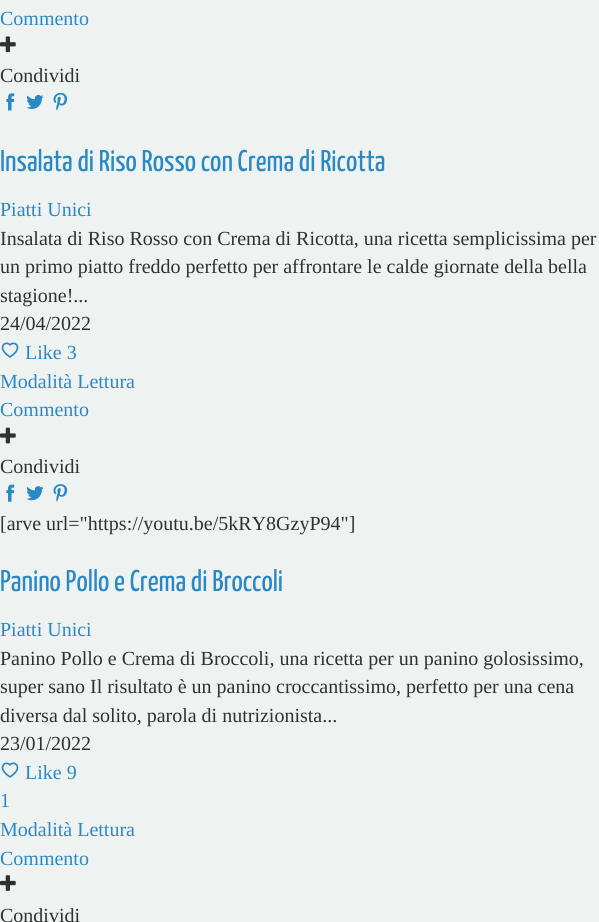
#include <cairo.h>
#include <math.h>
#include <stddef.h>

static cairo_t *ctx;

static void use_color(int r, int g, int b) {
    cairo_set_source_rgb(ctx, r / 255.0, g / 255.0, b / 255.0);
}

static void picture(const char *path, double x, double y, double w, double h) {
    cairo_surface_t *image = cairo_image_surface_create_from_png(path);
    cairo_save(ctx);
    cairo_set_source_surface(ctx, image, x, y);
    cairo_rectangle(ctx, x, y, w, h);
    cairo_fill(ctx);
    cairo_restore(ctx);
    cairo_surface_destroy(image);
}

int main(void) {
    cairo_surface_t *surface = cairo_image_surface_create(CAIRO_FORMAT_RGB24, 599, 922);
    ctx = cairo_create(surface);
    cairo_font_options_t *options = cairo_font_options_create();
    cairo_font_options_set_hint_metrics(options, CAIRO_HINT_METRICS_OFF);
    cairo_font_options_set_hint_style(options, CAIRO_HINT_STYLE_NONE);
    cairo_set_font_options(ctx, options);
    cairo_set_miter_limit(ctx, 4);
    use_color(238, 243, 242);
    cairo_paint(ctx);
    cairo_select_font_face(ctx, "Liberation Serif", CAIRO_FONT_SLANT_NORMAL, CAIRO_FONT_WEIGHT_NORMAL);
    cairo_set_font_size(ctx, 20);
    use_color(42, 136, 197);
    cairo_move_to(ctx, 0, 25);
    cairo_show_text(ctx, "Commento");
    picture("img1.png", 0, 36, 16, 17);
    use_color(48, 49, 48);
    cairo_move_to(ctx, 0, 82);
    cairo_show_text(ctx, "Condividi");
    picture("img2.png", 6, 93, 9, 18);
    picture("img3.png", 26, 94, 18, 15);
    picture("img4.png", 53, 92, 15, 19);
    cairo_select_font_face(ctx, "Yanone Kaffeesatz", CAIRO_FONT_SLANT_NORMAL, CAIRO_FONT_WEIGHT_NORMAL);
    cairo_set_font_size(ctx, 30);
    use_color(42, 136, 197);
    cairo_move_to(ctx, 0, 171);
    cairo_show_text(ctx, "Insalata di Riso Rosso con Crema di Ricotta");
    cairo_select_font_face(ctx, "Liberation Serif", CAIRO_FONT_SLANT_NORMAL, CAIRO_FONT_WEIGHT_NORMAL);
    cairo_set_font_size(ctx, 20);
    cairo_move_to(ctx, 0, 216);
    cairo_show_text(ctx, "Piatti Unici");
    use_color(48, 49, 48);
    cairo_move_to(ctx, 0, 245);
    cairo_show_text(ctx, "Insalata di Riso Rosso con Crema di Ricotta, una ricetta semplicissima per");
    cairo_move_to(ctx, 0, 273);
    cairo_show_text(ctx, "un primo piatto freddo perfetto per affrontare le calde giornate della bella");
    cairo_move_to(ctx, 0, 302);
    cairo_show_text(ctx, "stagione!...");
    cairo_move_to(ctx, 0, 330);
    cairo_show_text(ctx, "24/04/2022");
    picture("img5.png", 1, 342, 18, 16);
    use_color(42, 136, 197);
    cairo_move_to(ctx, 25, 359);
    cairo_show_text(ctx, "Like 3");
    cairo_move_to(ctx, 0, 388);
    cairo_show_text(ctx, "Modalità Lettura");
    cairo_move_to(ctx, 0, 416);
    cairo_show_text(ctx, "Commento");
    picture("img6.png", 0, 427, 16, 17);
    use_color(48, 49, 48);
    cairo_move_to(ctx, 0, 473);
    cairo_show_text(ctx, "Condividi");
    picture("img7.png", 6, 484, 9, 18);
    picture("img8.png", 26, 486, 18, 15);
    picture("img9.png", 53, 484, 15, 18);
    cairo_move_to(ctx, 0, 530);
    cairo_show_text(ctx, "[arve url=\"https://youtu.be/5kRY8GzyP94\"]");
    cairo_select_font_face(ctx, "Yanone Kaffeesatz", CAIRO_FONT_SLANT_NORMAL, CAIRO_FONT_WEIGHT_NORMAL);
    cairo_set_font_size(ctx, 30);
    use_color(42, 136, 197);
    cairo_move_to(ctx, 0, 591);
    cairo_show_text(ctx, "Panino Pollo e Crema di Broccoli");
    cairo_select_font_face(ctx, "Liberation Serif", CAIRO_FONT_SLANT_NORMAL, CAIRO_FONT_WEIGHT_NORMAL);
    cairo_set_font_size(ctx, 20);
    cairo_move_to(ctx, 0, 636);
    cairo_show_text(ctx, "Piatti Unici");
    use_color(48, 49, 48);
    cairo_move_to(ctx, 0, 665);
    cairo_show_text(ctx, "Panino Pollo e Crema di Broccoli, una ricetta per un panino golosissimo,");
    cairo_move_to(ctx, 0, 693);
    cairo_show_text(ctx, "super sano Il risultato è un panino croccantissimo, perfetto per una cena");
    cairo_move_to(ctx, 0, 722);
    cairo_show_text(ctx, "diversa dal solito, parola di nutrizionista...");
    cairo_move_to(ctx, 0, 750);
    cairo_show_text(ctx, "23/01/2022");
    picture("img5.png", 1, 762, 18, 16);
    use_color(42, 136, 197);
    cairo_move_to(ctx, 25, 779);
    cairo_show_text(ctx, "Like 9");
    cairo_move_to(ctx, 0, 807);
    cairo_show_text(ctx, "1");
    cairo_move_to(ctx, 0, 836);
    cairo_show_text(ctx, "Modalità Lettura");
    cairo_move_to(ctx, 0, 865);
    cairo_show_text(ctx, "Commento");
    picture("img10.png", 0, 875, 16, 16);
    use_color(48, 49, 48);
    cairo_move_to(ctx, 0, 922);
    cairo_show_text(ctx, "Condividi");
    cairo_surface_write_to_png(surface, "result.png");
    cairo_font_options_destroy(options);
    cairo_destroy(ctx);
    cairo_surface_destroy(surface);
    return 0;
}
